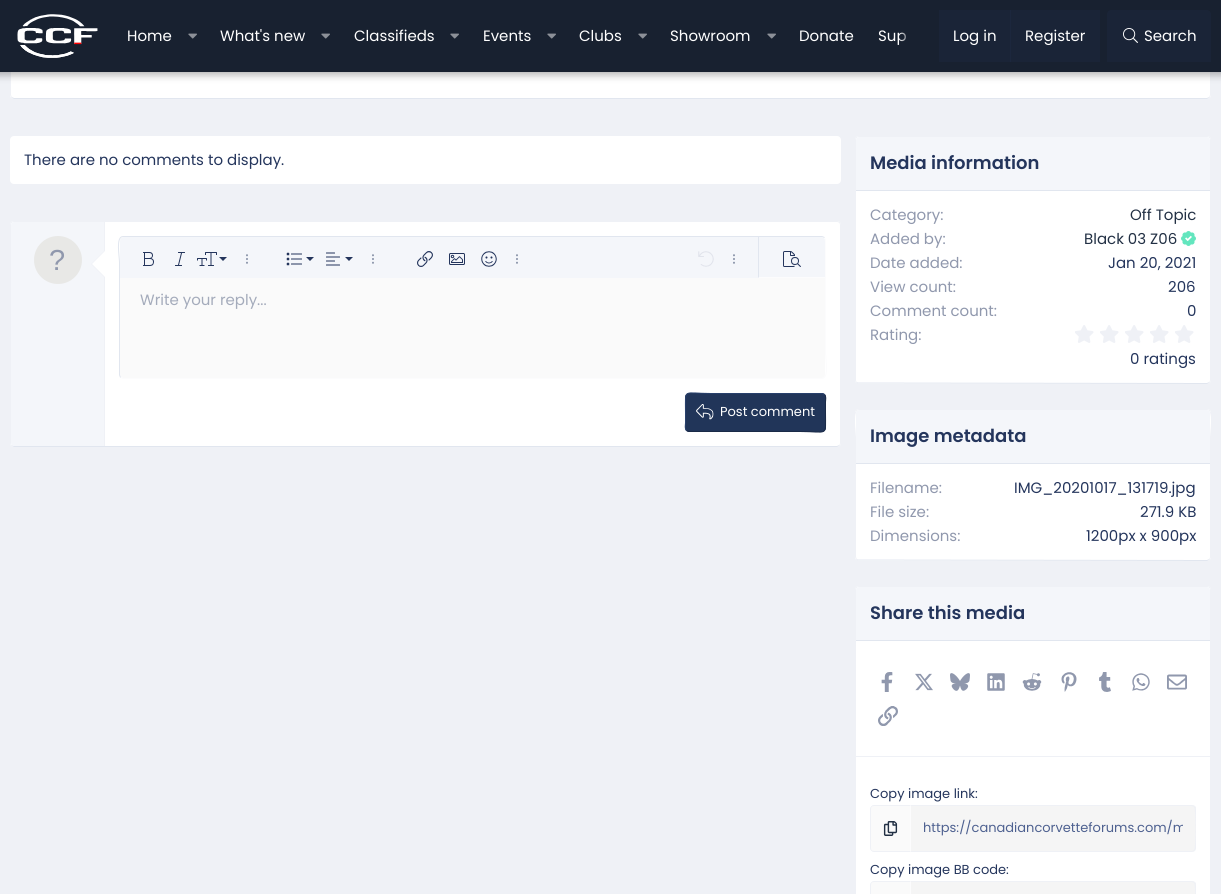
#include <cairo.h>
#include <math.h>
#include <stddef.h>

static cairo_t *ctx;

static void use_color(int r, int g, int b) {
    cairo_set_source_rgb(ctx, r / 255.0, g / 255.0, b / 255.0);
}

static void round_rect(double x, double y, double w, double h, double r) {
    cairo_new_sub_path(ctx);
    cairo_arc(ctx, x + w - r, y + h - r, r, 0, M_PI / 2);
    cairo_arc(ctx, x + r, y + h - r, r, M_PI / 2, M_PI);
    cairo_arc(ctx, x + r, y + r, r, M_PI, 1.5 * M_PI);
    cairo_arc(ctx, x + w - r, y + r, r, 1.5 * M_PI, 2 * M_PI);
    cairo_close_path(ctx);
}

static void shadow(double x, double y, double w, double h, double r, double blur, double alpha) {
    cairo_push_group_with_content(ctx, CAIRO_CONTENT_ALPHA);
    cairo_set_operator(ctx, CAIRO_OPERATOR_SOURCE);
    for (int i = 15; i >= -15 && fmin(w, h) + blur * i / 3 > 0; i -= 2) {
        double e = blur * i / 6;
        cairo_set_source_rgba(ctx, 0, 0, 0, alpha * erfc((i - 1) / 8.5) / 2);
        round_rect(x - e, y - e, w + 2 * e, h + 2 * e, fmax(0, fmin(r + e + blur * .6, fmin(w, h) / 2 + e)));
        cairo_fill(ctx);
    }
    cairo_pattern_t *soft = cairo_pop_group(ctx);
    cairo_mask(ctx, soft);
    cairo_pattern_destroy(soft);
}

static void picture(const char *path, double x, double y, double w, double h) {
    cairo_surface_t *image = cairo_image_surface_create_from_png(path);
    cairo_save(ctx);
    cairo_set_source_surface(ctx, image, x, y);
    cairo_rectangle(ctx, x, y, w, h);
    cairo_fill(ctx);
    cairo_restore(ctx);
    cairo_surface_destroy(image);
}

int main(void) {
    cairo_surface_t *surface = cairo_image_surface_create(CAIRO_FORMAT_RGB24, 1221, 894);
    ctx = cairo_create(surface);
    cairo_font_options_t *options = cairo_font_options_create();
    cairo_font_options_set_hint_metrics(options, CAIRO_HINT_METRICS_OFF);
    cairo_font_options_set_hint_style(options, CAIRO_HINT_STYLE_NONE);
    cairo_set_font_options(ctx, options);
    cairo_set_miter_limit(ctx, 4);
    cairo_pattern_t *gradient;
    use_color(239, 241, 246);
    cairo_paint(ctx);
    use_color(255, 255, 255);
    round_rect(10, -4, 1201, 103, 4);
    cairo_fill(ctx);
    cairo_new_path(ctx);
    cairo_move_to(ctx, 1209.5, 97.5);
    cairo_line_to(ctx, 1207, 98.5);
    cairo_line_to(ctx, 14, 98.5);
    cairo_line_to(ctx, 11.5, 97.5);
    use_color(225, 230, 239);
    cairo_set_line_width(ctx, 1);
    cairo_stroke(ctx);
    cairo_new_path(ctx);
    cairo_move_to(ctx, 11.5, 97.5);
    cairo_line_to(ctx, 10.5, 95);
    cairo_line_to(ctx, 10.5, -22.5);
    cairo_curve_to(ctx, 10.5, -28, 6.5, -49.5, 14, -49.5);
    cairo_line_to(ctx, 1207, -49.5);
    cairo_curve_to(ctx, 1214.5, -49.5, 1210.5, -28, 1210.5, -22.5);
    cairo_line_to(ctx, 1210.5, 95);
    cairo_line_to(ctx, 1209.5, 97.5);
    use_color(239, 241, 246);
    cairo_stroke(ctx);
    use_color(0, 0, 0);
    shadow(-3, -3, 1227, 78, 0, 4, 0.3);
    use_color(24, 33, 48);
    cairo_rectangle(ctx, 0, 0, 1221, 72);
    cairo_fill(ctx);
    picture("img1.png", 17, 14, 81, 44);
    cairo_select_font_face(ctx, "Poppins", CAIRO_FONT_SLANT_NORMAL, CAIRO_FONT_WEIGHT_NORMAL);
    cairo_set_font_size(ctx, 15);
    use_color(255, 255, 255);
    cairo_move_to(ctx, 127, 41);
    cairo_show_text(ctx, "Home");
    picture("img2.png", 188, 33, 9, 6);
    cairo_move_to(ctx, 220, 41);
    cairo_show_text(ctx, "What's new");
    picture("img2.png", 321, 33, 9, 6);
    cairo_move_to(ctx, 354, 41);
    cairo_show_text(ctx, "Classifieds");
    picture("img2.png", 450, 33, 9, 6);
    cairo_move_to(ctx, 483, 41);
    cairo_show_text(ctx, "Events");
    picture("img2.png", 547, 33, 9, 6);
    cairo_move_to(ctx, 579, 41);
    cairo_show_text(ctx, "Clubs");
    picture("img2.png", 638, 33, 9, 6);
    cairo_move_to(ctx, 670, 41);
    cairo_show_text(ctx, "Showroom");
    picture("img2.png", 767, 33, 9, 6);
    cairo_move_to(ctx, 799, 41);
    cairo_show_text(ctx, "Donate");
    cairo_move_to(ctx, 878, 41);
    cairo_show_text(ctx, "Sup");
    gradient = cairo_pattern_create_linear(899, 36, 939, 36);
    cairo_pattern_add_color_stop_rgba(gradient, 0, 0.094, 0.129, 0.188, 0);
    cairo_pattern_add_color_stop_rgba(gradient, 0.33, 0.094, 0.129, 0.188, 1);
    cairo_set_source(ctx, gradient);
    cairo_pattern_destroy(gradient);
    cairo_rectangle(ctx, 899, 32, 7, 10);
    cairo_fill(ctx);
    use_color(26, 36, 55);
    cairo_rectangle(ctx, 939, 10, 161, 52);
    cairo_fill(ctx);
    use_color(255, 255, 255);
    cairo_move_to(ctx, 953, 41);
    cairo_show_text(ctx, "Log in");
    use_color(28, 39, 61);
    cairo_rectangle(ctx, 1010, 10, 1, 52);
    cairo_fill(ctx);
    use_color(255, 255, 255);
    cairo_move_to(ctx, 1025, 41);
    cairo_show_text(ctx, "Register");
    use_color(26, 36, 55);
    cairo_new_path(ctx);
    cairo_move_to(ctx, 1111, 10);
    cairo_line_to(ctx, 1207, 10);
    cairo_curve_to(ctx, 1209, 10, 1211, 12, 1211, 14);
    cairo_line_to(ctx, 1211, 62);
    cairo_line_to(ctx, 1107, 62);
    cairo_line_to(ctx, 1107, 14);
    cairo_curve_to(ctx, 1107, 12, 1109, 10, 1111, 10);
    cairo_close_path(ctx);
    cairo_fill(ctx);
    picture("img3.png", 1123, 28, 15, 15);
    use_color(255, 255, 255);
    cairo_move_to(ctx, 1144, 41);
    cairo_show_text(ctx, "Search");
    round_rect(10, 136, 831, 48, 4);
    cairo_fill(ctx);
    use_color(36, 53, 92);
    cairo_move_to(ctx, 24, 165);
    cairo_show_text(ctx, "There are no comments to display.");
    use_color(255, 255, 255);
    round_rect(10, 221, 831, 226, 4);
    cairo_fill(ctx);
    cairo_new_path(ctx);
    cairo_move_to(ctx, 839.5, 445.5);
    cairo_line_to(ctx, 837, 446.5);
    cairo_line_to(ctx, 14, 446.5);
    cairo_line_to(ctx, 11.5, 445.5);
    use_color(225, 230, 239);
    cairo_stroke(ctx);
    cairo_new_path(ctx);
    cairo_move_to(ctx, 11.5, 445.5);
    cairo_curve_to(ctx, 11, 445, 10.5, 444, 10.5, 443);
    cairo_line_to(ctx, 10.5, 225);
    cairo_curve_to(ctx, 10.5, 224, 11, 223, 11.5, 222.5);
    cairo_curve_to(ctx, 12, 222, 13, 221.5, 14, 221.5);
    cairo_line_to(ctx, 837, 221.5);
    cairo_curve_to(ctx, 838, 221.5, 839, 222, 839.5, 222.5);
    cairo_curve_to(ctx, 840, 223, 840.5, 224, 840.5, 225);
    cairo_line_to(ctx, 840.5, 443);
    cairo_curve_to(ctx, 840.5, 444, 840, 445, 839.5, 445.5);
    use_color(239, 241, 246);
    cairo_stroke(ctx);
    use_color(244, 246, 250);
    cairo_new_path(ctx);
    cairo_move_to(ctx, 14, 222);
    cairo_line_to(ctx, 105, 222);
    cairo_line_to(ctx, 105, 446);
    cairo_line_to(ctx, 14, 446);
    cairo_curve_to(ctx, 12.5, 446, 11, 444.5, 11, 443);
    cairo_line_to(ctx, 11, 225);
    cairo_curve_to(ctx, 11, 223.5, 12.5, 222, 14, 222);
    cairo_close_path(ctx);
    cairo_fill(ctx);
    use_color(239, 241, 246);
    cairo_rectangle(ctx, 104, 222, 1, 224);
    cairo_fill(ctx);
    use_color(232, 232, 230);
    cairo_arc(ctx, 58, 260, 24, 0, 2 * M_PI);
    cairo_fill(ctx);
    cairo_select_font_face(ctx, "Liberation Sans", CAIRO_FONT_SLANT_NORMAL, CAIRO_FONT_WEIGHT_NORMAL);
    cairo_set_font_size(ctx, 29);
    use_color(144, 152, 173);
    cairo_move_to(ctx, 49, 270);
    cairo_show_text(ctx, "?");
    use_color(239, 241, 246);
    cairo_new_path(ctx);
    cairo_move_to(ctx, 105, 250);
    cairo_line_to(ctx, 105, 278);
    cairo_line_to(ctx, 91, 264);
    cairo_close_path(ctx);
    cairo_fill(ctx);
    use_color(255, 255, 255);
    cairo_new_path(ctx);
    cairo_move_to(ctx, 105, 251);
    cairo_line_to(ctx, 105, 277);
    cairo_line_to(ctx, 92, 264);
    cairo_close_path(ctx);
    cairo_fill(ctx);
    use_color(250, 250, 250);
    round_rect(120, 237, 705, 141, 3);
    cairo_fill(ctx);
    cairo_new_path(ctx);
    cairo_move_to(ctx, 824.5, 237.5);
    cairo_line_to(ctx, 825.5, 240);
    cairo_line_to(ctx, 825.5, 352.5);
    cairo_curve_to(ctx, 825.5, 358.5, 829.5, 378.5, 822, 378.5);
    cairo_line_to(ctx, 123, 378.5);
    cairo_line_to(ctx, 120.5, 377.5);
    use_color(252, 252, 253);
    cairo_stroke(ctx);
    cairo_new_path(ctx);
    cairo_move_to(ctx, 120.5, 377.5);
    cairo_line_to(ctx, 119.5, 375);
    cairo_line_to(ctx, 119.5, 262.5);
    cairo_curve_to(ctx, 119.5, 256.5, 115.5, 236.5, 123, 236.5);
    cairo_line_to(ctx, 822, 236.5);
    cairo_line_to(ctx, 824.5, 237.5);
    use_color(225, 230, 239);
    cairo_stroke(ctx);
    use_color(244, 246, 250);
    cairo_new_path(ctx);
    cairo_move_to(ctx, 124, 237);
    cairo_line_to(ctx, 821, 237);
    cairo_curve_to(ctx, 823, 237, 825, 239, 825, 241);
    cairo_line_to(ctx, 825, 278);
    cairo_line_to(ctx, 120, 278);
    cairo_line_to(ctx, 120, 241);
    cairo_curve_to(ctx, 120, 239, 122, 237, 124, 237);
    cairo_close_path(ctx);
    cairo_fill(ctx);
    picture("img4.png", 143, 252, 11, 14);
    picture("img5.png", 175, 252, 10, 14);
    picture("img6.png", 197, 252, 20, 14);
    use_color(36, 53, 92);
    cairo_new_path(ctx);
    cairo_move_to(ctx, 219, 257);
    cairo_line_to(ctx, 227, 257);
    cairo_line_to(ctx, 223, 261);
    cairo_close_path(ctx);
    cairo_fill(ctx);
    picture("img7.png", 246, 254, 2, 10);
    picture("img8.png", 286, 252, 16, 14);
    cairo_new_path(ctx);
    cairo_move_to(ctx, 306, 257);
    cairo_line_to(ctx, 314, 257);
    cairo_line_to(ctx, 310, 261);
    cairo_close_path(ctx);
    cairo_fill(ctx);
    picture("img9.png", 326, 252, 14, 14);
    cairo_new_path(ctx);
    cairo_move_to(ctx, 345, 257);
    cairo_line_to(ctx, 353, 257);
    cairo_line_to(ctx, 349, 261);
    cairo_close_path(ctx);
    cairo_fill(ctx);
    picture("img7.png", 372, 254, 2, 10);
    picture("img10.png", 417, 251, 16, 16);
    picture("img11.png", 449, 253, 16, 12);
    picture("img12.png", 481, 251, 16, 16);
    picture("img7.png", 516, 254, 2, 10);
    picture("img13.png", 698, 251, 16, 16);
    picture("img7.png", 733, 254, 2, 10);
    use_color(252, 252, 253);
    cairo_new_path(ctx);
    cairo_move_to(ctx, 825, 278);
    cairo_line_to(ctx, 825, 277);
    cairo_line_to(ctx, 759, 277);
    cairo_line_to(ctx, 758, 278);
    cairo_close_path(ctx);
    cairo_fill(ctx);
    use_color(225, 230, 239);
    cairo_new_path(ctx);
    cairo_move_to(ctx, 758, 237);
    cairo_line_to(ctx, 759, 237);
    cairo_line_to(ctx, 759, 277);
    cairo_line_to(ctx, 758, 278);
    cairo_close_path(ctx);
    cairo_fill(ctx);
    picture("img14.png", 783, 251, 18, 16);
    cairo_select_font_face(ctx, "Poppins", CAIRO_FONT_SLANT_NORMAL, CAIRO_FONT_WEIGHT_NORMAL);
    cairo_set_font_size(ctx, 15);
    use_color(164, 171, 187);
    cairo_move_to(ctx, 140, 305);
    cairo_show_text(ctx, "Write your reply...");
    use_color(33, 53, 89);
    round_rect(685, 393, 141, 39, 4);
    cairo_fill(ctx);
    cairo_new_path(ctx);
    cairo_move_to(ctx, 824.5, 394.5);
    cairo_curve_to(ctx, 826.5, 396.5, 825.5, 400.5, 825.5, 402);
    cairo_line_to(ctx, 825.5, 412.5);
    cairo_curve_to(ctx, 825.5, 437.5, 828.5, 431.5, 800, 431.5);
    cairo_line_to(ctx, 689, 431.5);
    cairo_line_to(ctx, 686.5, 430.5);
    use_color(26, 42, 71);
    cairo_stroke(ctx);
    cairo_new_path(ctx);
    cairo_move_to(ctx, 686.5, 430.5);
    cairo_curve_to(ctx, 684.5, 428.5, 685.5, 424.5, 685.5, 423);
    cairo_line_to(ctx, 685.5, 412.5);
    cairo_curve_to(ctx, 685.5, 387.5, 682.5, 393.5, 711, 393.5);
    cairo_line_to(ctx, 822, 393.5);
    cairo_line_to(ctx, 824.5, 394.5);
    use_color(40, 64, 108);
    cairo_stroke(ctx);
    picture("img15.png", 696, 404, 18, 16);
    cairo_set_font_size(ctx, 13);
    use_color(255, 255, 255);
    cairo_move_to(ctx, 720, 416);
    cairo_show_text(ctx, "Post comment");
    round_rect(855, 136, 356, 248, 4);
    cairo_fill(ctx);
    cairo_new_path(ctx);
    cairo_move_to(ctx, 1209.5, 382.5);
    cairo_line_to(ctx, 1207, 383.5);
    cairo_line_to(ctx, 857.5, 383);
    cairo_line_to(ctx, 856.5, 382.5);
    use_color(225, 230, 239);
    cairo_stroke(ctx);
    cairo_new_path(ctx);
    cairo_move_to(ctx, 856.5, 382.5);
    cairo_curve_to(ctx, 856, 382, 855.5, 381, 855.5, 380);
    cairo_line_to(ctx, 855.5, 140);
    cairo_curve_to(ctx, 855.5, 139, 856, 138, 856.5, 137.5);
    cairo_curve_to(ctx, 857, 137, 858, 136.5, 859, 136.5);
    cairo_line_to(ctx, 1207, 136.5);
    cairo_curve_to(ctx, 1208, 136.5, 1209, 137, 1209.5, 137.5);
    cairo_curve_to(ctx, 1210, 138, 1210.5, 139, 1210.5, 140);
    cairo_line_to(ctx, 1210.5, 380);
    cairo_curve_to(ctx, 1210.5, 381, 1210, 382, 1209.5, 382.5);
    use_color(239, 241, 246);
    cairo_stroke(ctx);
    use_color(244, 246, 250);
    cairo_new_path(ctx);
    cairo_move_to(ctx, 859, 137);
    cairo_line_to(ctx, 1207, 137);
    cairo_curve_to(ctx, 1208.5, 137, 1210, 138.5, 1210, 140);
    cairo_line_to(ctx, 1210, 191);
    cairo_line_to(ctx, 856, 191);
    cairo_line_to(ctx, 856, 140);
    cairo_curve_to(ctx, 856, 138.5, 857.5, 137, 859, 137);
    cairo_close_path(ctx);
    cairo_fill(ctx);
    use_color(225, 230, 239);
    cairo_rectangle(ctx, 856, 190, 354, 1);
    cairo_fill(ctx);
    cairo_select_font_face(ctx, "Poppins SemiBold", CAIRO_FONT_SLANT_NORMAL, CAIRO_FONT_WEIGHT_NORMAL);
    cairo_set_font_size(ctx, 18);
    use_color(36, 53, 92);
    cairo_move_to(ctx, 870, 169);
    cairo_show_text(ctx, "Media information");
    cairo_select_font_face(ctx, "Poppins", CAIRO_FONT_SLANT_NORMAL, CAIRO_FONT_WEIGHT_NORMAL);
    cairo_set_font_size(ctx, 15);
    use_color(144, 152, 173);
    cairo_move_to(ctx, 870, 220);
    cairo_show_text(ctx, "Category:");
    use_color(34, 48, 68);
    cairo_move_to(ctx, 1130, 220);
    cairo_show_text(ctx, "Off Topic");
    use_color(144, 152, 173);
    cairo_move_to(ctx, 870, 244);
    cairo_show_text(ctx, "Added by:");
    use_color(34, 48, 68);
    cairo_move_to(ctx, 1084, 244);
    cairo_show_text(ctx, "Black 03 Z06");
    picture("img16.png", 1181, 231, 15, 15);
    use_color(144, 152, 173);
    cairo_move_to(ctx, 870, 268);
    cairo_show_text(ctx, "Date added:");
    use_color(36, 53, 92);
    cairo_move_to(ctx, 1108, 268);
    cairo_show_text(ctx, "Jan 20, 2021");
    use_color(144, 152, 173);
    cairo_move_to(ctx, 870, 292);
    cairo_show_text(ctx, "View count:");
    use_color(36, 53, 92);
    cairo_move_to(ctx, 1168, 292);
    cairo_show_text(ctx, "206");
    use_color(144, 152, 173);
    cairo_move_to(ctx, 870, 316);
    cairo_show_text(ctx, "Comment count:");
    use_color(36, 53, 92);
    cairo_move_to(ctx, 1187, 316);
    cairo_show_text(ctx, "0");
    use_color(144, 152, 173);
    cairo_move_to(ctx, 870, 340);
    cairo_show_text(ctx, "Rating:");
    picture("img17.png", 1075, 325, 19, 18);
    picture("img17.png", 1100, 325, 19, 18);
    picture("img17.png", 1125, 325, 19, 18);
    picture("img17.png", 1150, 325, 19, 18);
    picture("img17.png", 1175, 325, 19, 18);
    use_color(36, 53, 92);
    cairo_move_to(ctx, 1130, 364);
    cairo_show_text(ctx, "0 ratings");
    use_color(255, 255, 255);
    round_rect(855, 409, 356, 152, 4);
    cairo_fill(ctx);
    cairo_new_path(ctx);
    cairo_move_to(ctx, 1209.5, 559.5);
    cairo_line_to(ctx, 1207, 560.5);
    cairo_line_to(ctx, 857.5, 560);
    cairo_line_to(ctx, 856.5, 559.5);
    use_color(225, 230, 239);
    cairo_stroke(ctx);
    cairo_new_path(ctx);
    cairo_move_to(ctx, 856.5, 559.5);
    cairo_line_to(ctx, 855.5, 557);
    cairo_line_to(ctx, 855.5, 437);
    cairo_curve_to(ctx, 855.5, 432, 851.5, 409.5, 859, 409.5);
    cairo_line_to(ctx, 1207, 409.5);
    cairo_curve_to(ctx, 1214.5, 409.5, 1210.5, 432, 1210.5, 437);
    cairo_line_to(ctx, 1210.5, 557.5);
    cairo_line_to(ctx, 1209.5, 559.5);
    use_color(239, 241, 246);
    cairo_stroke(ctx);
    use_color(244, 246, 250);
    cairo_new_path(ctx);
    cairo_move_to(ctx, 859, 410);
    cairo_line_to(ctx, 1207, 410);
    cairo_curve_to(ctx, 1208.5, 410, 1210, 411.5, 1210, 413);
    cairo_line_to(ctx, 1210, 464);
    cairo_line_to(ctx, 856, 464);
    cairo_line_to(ctx, 856, 413);
    cairo_curve_to(ctx, 856, 411.5, 857.5, 410, 859, 410);
    cairo_close_path(ctx);
    cairo_fill(ctx);
    use_color(225, 230, 239);
    cairo_rectangle(ctx, 856, 463, 354, 1);
    cairo_fill(ctx);
    cairo_select_font_face(ctx, "Poppins SemiBold", CAIRO_FONT_SLANT_NORMAL, CAIRO_FONT_WEIGHT_NORMAL);
    cairo_set_font_size(ctx, 18);
    use_color(36, 53, 92);
    cairo_move_to(ctx, 870, 442);
    cairo_show_text(ctx, "Image metadata");
    cairo_select_font_face(ctx, "Poppins", CAIRO_FONT_SLANT_NORMAL, CAIRO_FONT_WEIGHT_NORMAL);
    cairo_set_font_size(ctx, 15);
    use_color(144, 152, 173);
    cairo_move_to(ctx, 870, 493);
    cairo_show_text(ctx, "Filename:");
    use_color(36, 53, 92);
    cairo_move_to(ctx, 1014, 493);
    cairo_show_text(ctx, "IMG_20201017_131719.jpg");
    use_color(144, 152, 173);
    cairo_move_to(ctx, 870, 517);
    cairo_show_text(ctx, "File size:");
    use_color(36, 53, 92);
    cairo_move_to(ctx, 1140, 517);
    cairo_show_text(ctx, "271.9 KB");
    use_color(144, 152, 173);
    cairo_move_to(ctx, 870, 541);
    cairo_show_text(ctx, "Dimensions:");
    use_color(36, 53, 92);
    cairo_move_to(ctx, 1086, 541);
    cairo_show_text(ctx, "1200px x 900px");
    use_color(255, 255, 255);
    round_rect(855, 586, 356, 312, 4);
    cairo_fill(ctx);
    cairo_new_path(ctx);
    cairo_move_to(ctx, 856.5, 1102.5);
    cairo_curve_to(ctx, 856, 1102, 855.5, 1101, 855.5, 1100);
    cairo_line_to(ctx, 855.5, 590);
    cairo_curve_to(ctx, 855.5, 589, 856, 588, 856.5, 587.5);
    cairo_curve_to(ctx, 857, 587, 858, 586.5, 859, 586.5);
    cairo_line_to(ctx, 1207, 586.5);
    cairo_curve_to(ctx, 1208, 586.5, 1209, 587, 1209.5, 587.5);
    cairo_curve_to(ctx, 1210, 588, 1210.5, 589, 1210.5, 590);
    cairo_line_to(ctx, 1210.5, 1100);
    cairo_curve_to(ctx, 1210.5, 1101, 1210, 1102, 1209.5, 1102.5);
    use_color(239, 241, 246);
    cairo_stroke(ctx);
    use_color(244, 246, 250);
    cairo_new_path(ctx);
    cairo_move_to(ctx, 859, 587);
    cairo_line_to(ctx, 1207, 587);
    cairo_curve_to(ctx, 1208.5, 587, 1210, 588.5, 1210, 590);
    cairo_line_to(ctx, 1210, 641);
    cairo_line_to(ctx, 856, 641);
    cairo_line_to(ctx, 856, 590);
    cairo_curve_to(ctx, 856, 588.5, 857.5, 587, 859, 587);
    cairo_close_path(ctx);
    cairo_fill(ctx);
    use_color(225, 230, 239);
    cairo_rectangle(ctx, 856, 640, 354, 1);
    cairo_fill(ctx);
    cairo_select_font_face(ctx, "Poppins SemiBold", CAIRO_FONT_SLANT_NORMAL, CAIRO_FONT_WEIGHT_NORMAL);
    cairo_set_font_size(ctx, 18);
    use_color(36, 53, 92);
    cairo_move_to(ctx, 870, 619);
    cairo_show_text(ctx, "Share this media");
    picture("img18.png", 881, 672, 12, 20);
    picture("img19.png", 915, 673, 18, 18);
    picture("img20.png", 950, 673, 20, 18);
    picture("img21.png", 987, 673, 18, 18);
    picture("img22.png", 1022, 673, 20, 18);
    picture("img23.png", 1061, 672, 16, 20);
    picture("img24.png", 1099, 672, 12, 20);
    picture("img25.png", 1132, 673, 18, 18);
    picture("img26.png", 1167, 674, 20, 16);
    picture("img27.png", 878, 706, 20, 20);
    use_color(239, 241, 246);
    cairo_rectangle(ctx, 856, 756, 354, 1);
    cairo_fill(ctx);
    cairo_select_font_face(ctx, "Poppins", CAIRO_FONT_SLANT_NORMAL, CAIRO_FONT_WEIGHT_NORMAL);
    cairo_set_font_size(ctx, 13);
    use_color(36, 53, 92);
    cairo_move_to(ctx, 870, 798);
    cairo_show_text(ctx, "Copy image link:");
    use_color(250, 250, 250);
    cairo_new_path(ctx);
    cairo_move_to(ctx, 874, 805);
    cairo_line_to(ctx, 910, 805);
    cairo_line_to(ctx, 910, 852);
    cairo_line_to(ctx, 874, 852);
    cairo_curve_to(ctx, 872, 852, 870, 850, 870, 848);
    cairo_line_to(ctx, 870, 809);
    cairo_curve_to(ctx, 870, 807, 872, 805, 874, 805);
    cairo_close_path(ctx);
    cairo_fill(ctx);
    use_color(239, 241, 246);
    cairo_set_fill_rule(ctx, CAIRO_FILL_RULE_EVEN_ODD);
    cairo_new_path(ctx);
    cairo_move_to(ctx, 874, 805);
    cairo_line_to(ctx, 910, 805);
    cairo_line_to(ctx, 910, 852);
    cairo_line_to(ctx, 874, 852);
    cairo_curve_to(ctx, 872, 852, 870, 850, 870, 848);
    cairo_line_to(ctx, 870, 809);
    cairo_curve_to(ctx, 870, 807, 872, 805, 874, 805);
    cairo_close_path(ctx);
    cairo_move_to(ctx, 874, 806);
    cairo_line_to(ctx, 910, 806);
    cairo_line_to(ctx, 910, 851);
    cairo_line_to(ctx, 874, 851);
    cairo_curve_to(ctx, 872, 851, 871, 850, 871, 848);
    cairo_line_to(ctx, 871, 809);
    cairo_curve_to(ctx, 871, 807, 872, 806, 874, 806);
    cairo_close_path(ctx);
    cairo_fill(ctx);
    picture("img28.png", 883, 821, 15, 15);
    use_color(245, 245, 245);
    cairo_new_path(ctx);
    cairo_move_to(ctx, 910, 805);
    cairo_line_to(ctx, 1192, 805);
    cairo_curve_to(ctx, 1194, 805, 1196, 807, 1196, 809);
    cairo_line_to(ctx, 1196, 848);
    cairo_curve_to(ctx, 1196, 850, 1194, 852, 1192, 852);
    cairo_line_to(ctx, 910, 852);
    cairo_close_path(ctx);
    cairo_fill(ctx);
    use_color(239, 241, 246);
    cairo_set_fill_rule(ctx, CAIRO_FILL_RULE_WINDING);
    cairo_new_path(ctx);
    cairo_move_to(ctx, 910, 805);
    cairo_line_to(ctx, 911, 806);
    cairo_line_to(ctx, 1192, 806);
    cairo_line_to(ctx, 1194, 807);
    cairo_line_to(ctx, 1195, 806);
    cairo_line_to(ctx, 1192, 805);
    cairo_close_path(ctx);
    cairo_fill(ctx);
    cairo_new_path(ctx);
    cairo_move_to(ctx, 1196, 848);
    cairo_line_to(ctx, 1196, 809);
    cairo_curve_to(ctx, 1196, 808, 1196, 807, 1195, 806);
    cairo_line_to(ctx, 1194, 807);
    cairo_curve_to(ctx, 1196, 808, 1196, 849, 1194, 850);
    cairo_line_to(ctx, 1195, 851);
    cairo_close_path(ctx);
    cairo_fill(ctx);
    cairo_new_path(ctx);
    cairo_move_to(ctx, 1192, 852);
    cairo_line_to(ctx, 1195, 851);
    cairo_line_to(ctx, 1194, 850);
    cairo_line_to(ctx, 1192, 851);
    cairo_line_to(ctx, 911, 851);
    cairo_line_to(ctx, 910, 852);
    cairo_close_path(ctx);
    cairo_fill(ctx);
    use_color(252, 252, 253);
    cairo_new_path(ctx);
    cairo_move_to(ctx, 910, 805);
    cairo_line_to(ctx, 910, 852);
    cairo_line_to(ctx, 911, 851);
    cairo_line_to(ctx, 911, 806);
    cairo_close_path(ctx);
    cairo_fill(ctx);
    cairo_save(ctx);
    cairo_rectangle(ctx, 923, 818, 260, 21);
    cairo_clip(ctx);
    use_color(78, 97, 144);
    cairo_move_to(ctx, 923, 832);
    cairo_show_text(ctx, "https://canadiancorvetteforums.com/m");
    cairo_restore(ctx);
    use_color(36, 53, 92);
    cairo_move_to(ctx, 870, 874);
    cairo_show_text(ctx, "Copy image BB code:");
    use_color(250, 250, 250);
    cairo_new_path(ctx);
    cairo_move_to(ctx, 874, 881);
    cairo_line_to(ctx, 910, 881);
    cairo_line_to(ctx, 910, 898);
    cairo_line_to(ctx, 874, 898);
    cairo_curve_to(ctx, 872, 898, 870, 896, 870, 894);
    cairo_line_to(ctx, 870, 885);
    cairo_curve_to(ctx, 870, 883, 872, 881, 874, 881);
    cairo_close_path(ctx);
    cairo_fill(ctx);
    use_color(239, 241, 246);
    cairo_set_fill_rule(ctx, CAIRO_FILL_RULE_EVEN_ODD);
    cairo_new_path(ctx);
    cairo_move_to(ctx, 874, 881);
    cairo_line_to(ctx, 910, 881);
    cairo_line_to(ctx, 910, 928);
    cairo_line_to(ctx, 874, 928);
    cairo_curve_to(ctx, 872, 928, 870, 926, 870, 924);
    cairo_line_to(ctx, 870, 885);
    cairo_curve_to(ctx, 870, 883, 872, 881, 874, 881);
    cairo_close_path(ctx);
    cairo_move_to(ctx, 874, 882);
    cairo_line_to(ctx, 910, 882);
    cairo_line_to(ctx, 910, 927);
    cairo_line_to(ctx, 874, 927);
    cairo_curve_to(ctx, 872, 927, 871, 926, 871, 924);
    cairo_line_to(ctx, 871, 885);
    cairo_curve_to(ctx, 871, 883, 872, 882, 874, 882);
    cairo_close_path(ctx);
    cairo_fill(ctx);
    use_color(245, 245, 245);
    cairo_new_path(ctx);
    cairo_move_to(ctx, 910, 881);
    cairo_line_to(ctx, 1192, 881);
    cairo_curve_to(ctx, 1194, 881, 1196, 883, 1196, 885);
    cairo_line_to(ctx, 1196, 894);
    cairo_curve_to(ctx, 1196, 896, 1194, 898, 1192, 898);
    cairo_line_to(ctx, 910, 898);
    cairo_close_path(ctx);
    cairo_fill(ctx);
    use_color(239, 241, 246);
    cairo_set_fill_rule(ctx, CAIRO_FILL_RULE_WINDING);
    cairo_new_path(ctx);
    cairo_move_to(ctx, 910, 881);
    cairo_line_to(ctx, 911, 882);
    cairo_line_to(ctx, 1192, 882);
    cairo_line_to(ctx, 1194, 883);
    cairo_line_to(ctx, 1195, 882);
    cairo_line_to(ctx, 1192, 881);
    cairo_close_path(ctx);
    cairo_fill(ctx);
    cairo_new_path(ctx);
    cairo_move_to(ctx, 1196, 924);
    cairo_line_to(ctx, 1196, 885);
    cairo_curve_to(ctx, 1196, 884, 1196, 883, 1195, 882);
    cairo_line_to(ctx, 1194, 883);
    cairo_curve_to(ctx, 1196, 884, 1196, 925, 1194, 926);
    cairo_line_to(ctx, 1195, 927);
    cairo_close_path(ctx);
    cairo_fill(ctx);
    use_color(252, 252, 253);
    cairo_new_path(ctx);
    cairo_move_to(ctx, 910, 881);
    cairo_line_to(ctx, 910, 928);
    cairo_line_to(ctx, 911, 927);
    cairo_line_to(ctx, 911, 882);
    cairo_close_path(ctx);
    cairo_fill(ctx);
    cairo_surface_write_to_png(surface, "result.png");
    cairo_font_options_destroy(options);
    cairo_destroy(ctx);
    cairo_surface_destroy(surface);
    return 0;
}
